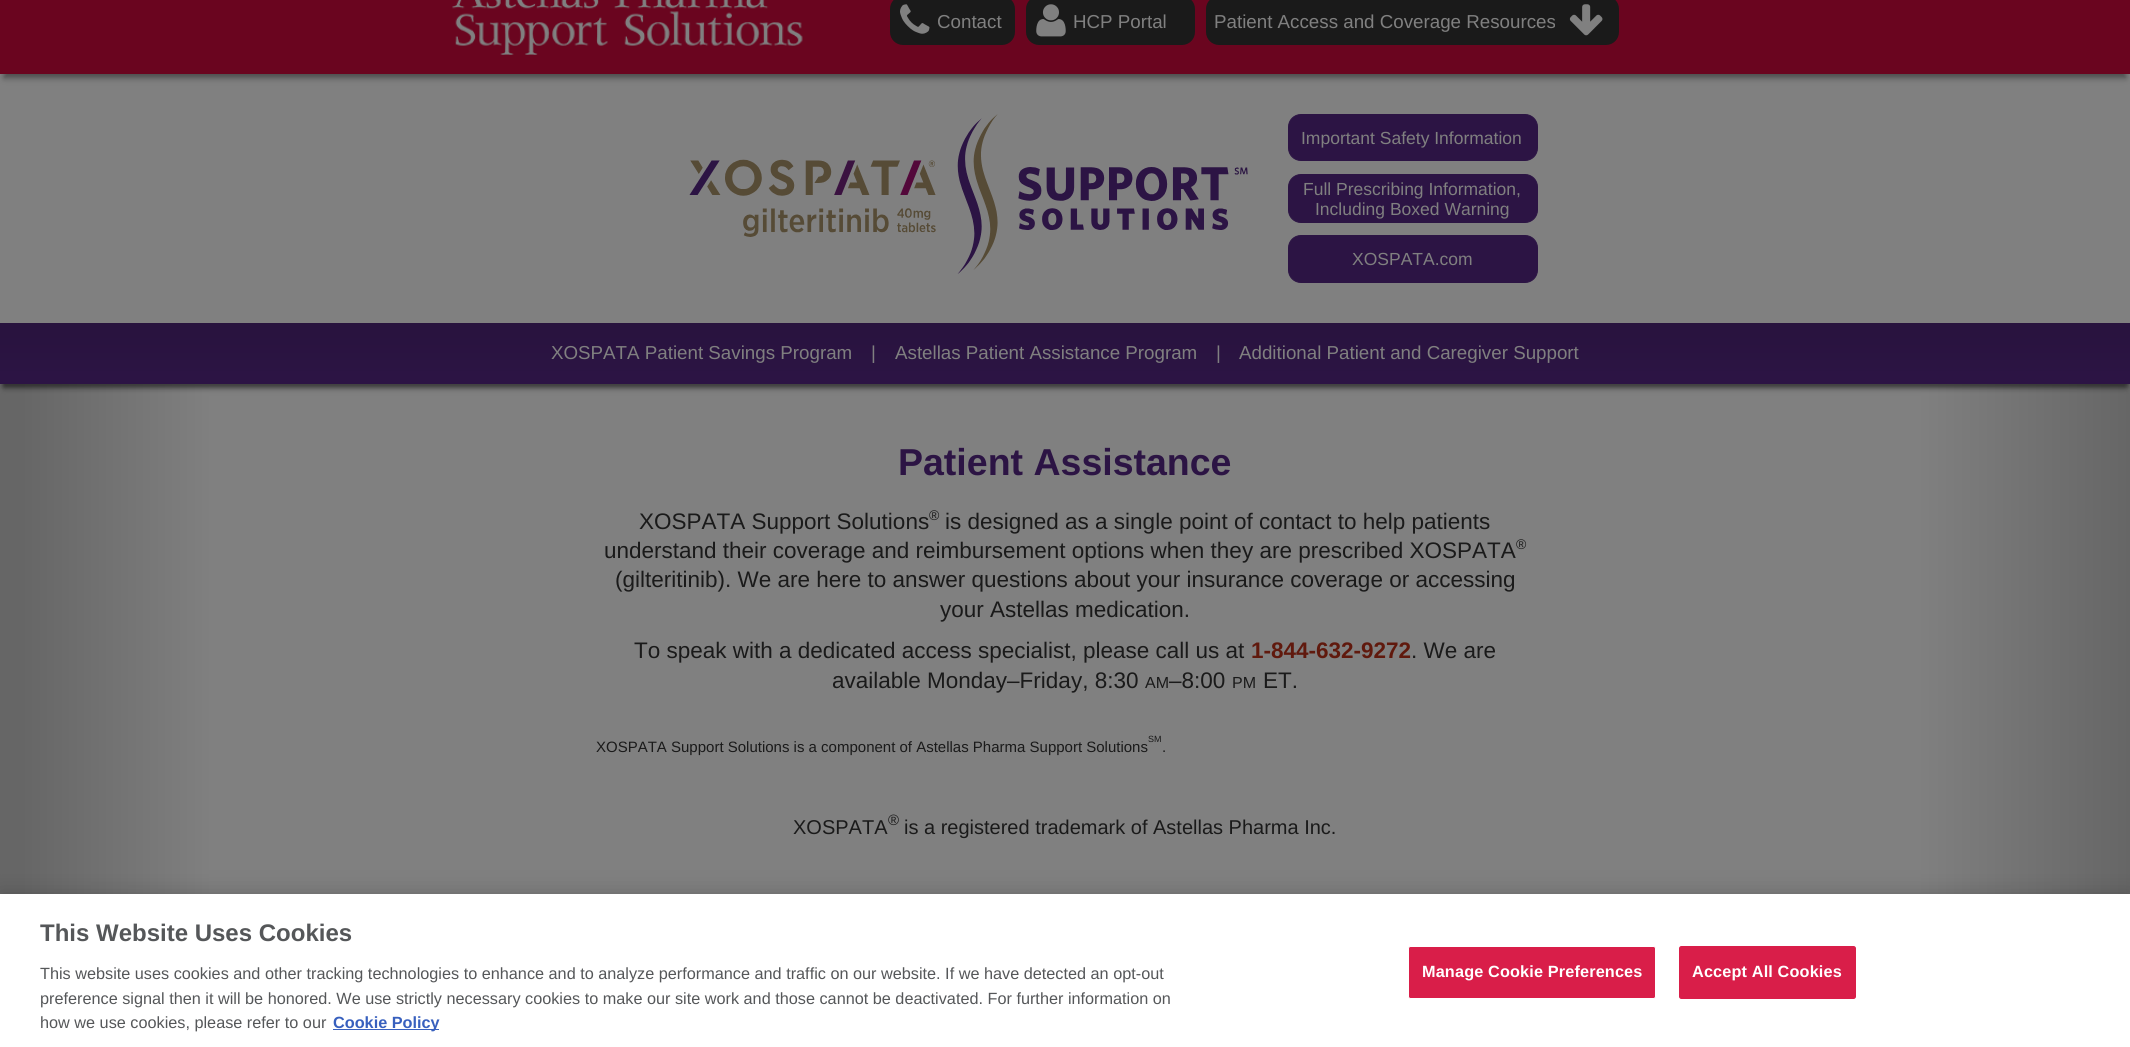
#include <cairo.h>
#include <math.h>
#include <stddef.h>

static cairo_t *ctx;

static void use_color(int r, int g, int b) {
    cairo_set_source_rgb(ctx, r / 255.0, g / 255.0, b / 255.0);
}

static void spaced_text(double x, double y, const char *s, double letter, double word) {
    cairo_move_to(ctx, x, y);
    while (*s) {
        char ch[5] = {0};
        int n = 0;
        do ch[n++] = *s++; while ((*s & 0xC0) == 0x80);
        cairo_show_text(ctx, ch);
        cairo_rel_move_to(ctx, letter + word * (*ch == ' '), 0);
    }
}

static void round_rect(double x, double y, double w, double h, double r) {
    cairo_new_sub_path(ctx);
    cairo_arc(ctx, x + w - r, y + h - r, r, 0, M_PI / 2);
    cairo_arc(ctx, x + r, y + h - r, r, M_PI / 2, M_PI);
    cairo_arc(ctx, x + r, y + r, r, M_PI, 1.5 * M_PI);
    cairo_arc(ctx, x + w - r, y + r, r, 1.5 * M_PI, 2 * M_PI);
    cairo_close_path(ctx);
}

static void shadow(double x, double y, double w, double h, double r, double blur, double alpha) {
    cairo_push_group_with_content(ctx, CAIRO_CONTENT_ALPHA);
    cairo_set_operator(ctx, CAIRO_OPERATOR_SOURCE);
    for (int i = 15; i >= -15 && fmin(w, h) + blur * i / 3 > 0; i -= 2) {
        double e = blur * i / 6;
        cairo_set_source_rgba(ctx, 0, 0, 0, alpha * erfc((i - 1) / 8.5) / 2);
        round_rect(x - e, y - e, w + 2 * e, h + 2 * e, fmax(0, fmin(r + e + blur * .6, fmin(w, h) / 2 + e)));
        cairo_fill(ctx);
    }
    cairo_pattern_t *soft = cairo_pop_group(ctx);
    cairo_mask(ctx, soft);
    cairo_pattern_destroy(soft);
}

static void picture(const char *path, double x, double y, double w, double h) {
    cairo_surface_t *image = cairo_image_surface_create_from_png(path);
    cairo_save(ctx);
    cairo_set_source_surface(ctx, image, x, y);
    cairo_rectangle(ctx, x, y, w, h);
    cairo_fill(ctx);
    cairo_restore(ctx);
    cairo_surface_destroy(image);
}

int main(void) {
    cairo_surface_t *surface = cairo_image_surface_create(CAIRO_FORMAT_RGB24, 2130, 1047);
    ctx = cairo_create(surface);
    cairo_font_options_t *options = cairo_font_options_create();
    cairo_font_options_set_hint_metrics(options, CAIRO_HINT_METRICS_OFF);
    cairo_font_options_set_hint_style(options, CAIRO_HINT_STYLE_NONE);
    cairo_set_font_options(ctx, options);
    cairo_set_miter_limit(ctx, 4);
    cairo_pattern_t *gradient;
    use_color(128, 128, 128);
    cairo_paint(ctx);
    use_color(106, 5, 31);
    cairo_rectangle(ctx, 0, 0, 2130, 55);
    cairo_fill(ctx);
    picture("img1.png", 452, 0, 351, 55);
    use_color(26, 26, 26);
    round_rect(890, -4, 125, 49, 13);
    cairo_fill(ctx);
    picture("img2.png", 900, 4, 30, 30);
    cairo_select_font_face(ctx, "Liberation Sans", CAIRO_FONT_SLANT_NORMAL, CAIRO_FONT_WEIGHT_NORMAL);
    cairo_set_font_size(ctx, 18.75);
    use_color(128, 128, 128);
    cairo_move_to(ctx, 937, 28);
    cairo_show_text(ctx, "Contact");
    use_color(26, 26, 26);
    round_rect(1026, -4, 169, 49, 13);
    cairo_fill(ctx);
    picture("img3.png", 1036, 4, 30, 33);
    use_color(128, 128, 128);
    cairo_move_to(ctx, 1073, 28);
    cairo_show_text(ctx, "HCP Portal");
    use_color(26, 26, 26);
    round_rect(1206, -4, 413, 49, 13);
    cairo_fill(ctx);
    use_color(128, 128, 128);
    cairo_move_to(ctx, 1214, 28);
    cairo_show_text(ctx, "Patient Access and Coverage Resources");
    picture("img4.png", 1569, 4, 34, 32);
    use_color(0, 0, 0);
    shadow(4, 66, 2122, 12, 0, 3, 0.4);
    use_color(106, 5, 31);
    cairo_rectangle(ctx, 0, 55, 2130, 19);
    cairo_fill(ctx);
    picture("img5.png", 689, 114, 559, 160);
    use_color(44, 20, 68);
    round_rect(1288.5, 114.5, 249, 46, 12.5);
    cairo_fill_preserve(ctx);
    cairo_set_line_width(ctx, 1);
    cairo_stroke(ctx);
    cairo_set_font_size(ctx, 17.5);
    use_color(128, 128, 128);
    cairo_move_to(ctx, 1301, 144);
    cairo_show_text(ctx, "Important Safety Information");
    use_color(44, 20, 68);
    round_rect(1288.5, 174.5, 249, 48, 12.5);
    cairo_fill_preserve(ctx);
    cairo_stroke(ctx);
    use_color(128, 128, 128);
    cairo_move_to(ctx, 1303, 195);
    cairo_show_text(ctx, "Full Prescribing Information,");
    cairo_move_to(ctx, 1315, 215);
    cairo_show_text(ctx, "Including Boxed Warning");
    use_color(44, 20, 68);
    round_rect(1288.5, 235.5, 249, 47, 12.5);
    cairo_fill_preserve(ctx);
    cairo_stroke(ctx);
    use_color(128, 128, 128);
    cairo_move_to(ctx, 1352, 265);
    cairo_show_text(ctx, "XOSPATA.com");
    gradient = cairo_pattern_create_linear(0, 618, 2130, 618);
    cairo_pattern_add_color_stop_rgba(gradient, 0.01, 0.4, 0.4, 0.4, 1);
    cairo_pattern_add_color_stop_rgba(gradient, 0.1, 0.502, 0.502, 0.502, 1);
    cairo_pattern_add_color_stop_rgba(gradient, 0.9, 0.502, 0.502, 0.502, 1);
    cairo_pattern_add_color_stop_rgba(gradient, 1, 0.4, 0.4, 0.4, 1);
    cairo_set_source(ctx, gradient);
    cairo_pattern_destroy(gradient);
    cairo_rectangle(ctx, 0, 384, 2130, 510);
    cairo_fill(ctx);
    use_color(0, 0, 0);
    shadow(3, 330, 2125, 56, 0, 2.5, 0.4);
    gradient = cairo_pattern_create_linear(1065, 322, 1065, 384);
    cairo_pattern_add_color_stop_rgba(gradient, 0.01, 0.157, 0.075, 0.243, 1);
    cairo_pattern_add_color_stop_rgba(gradient, 1, 0.173, 0.078, 0.267, 1);
    cairo_set_source(ctx, gradient);
    cairo_pattern_destroy(gradient);
    cairo_rectangle(ctx, 0, 323, 2130, 48);
    cairo_fill(ctx);
    cairo_set_font_size(ctx, 18.75);
    use_color(128, 128, 128);
    cairo_move_to(ctx, 551, 359);
    cairo_show_text(ctx, "XOSPATA Patient Savings Program");
    cairo_move_to(ctx, 871, 359);
    cairo_show_text(ctx, "|");
    cairo_move_to(ctx, 895, 359);
    cairo_show_text(ctx, "Astellas Patient Assistance Program");
    cairo_move_to(ctx, 1216, 359);
    cairo_show_text(ctx, "|");
    cairo_move_to(ctx, 1239, 359);
    cairo_show_text(ctx, "Additional Patient and Caregiver Support");
    use_color(0, 0, 0);
    shadow(4, 383, 2122, 5, 0, 3, 0.4);
    use_color(44, 20, 68);
    cairo_rectangle(ctx, 0, 371, 2130, 13);
    cairo_fill(ctx);
    cairo_select_font_face(ctx, "Liberation Sans", CAIRO_FONT_SLANT_NORMAL, CAIRO_FONT_WEIGHT_BOLD);
    cairo_set_font_size(ctx, 37.5);
    cairo_move_to(ctx, 898, 475);
    cairo_show_text(ctx, "Patient Assistance");
    cairo_select_font_face(ctx, "Liberation Sans", CAIRO_FONT_SLANT_NORMAL, CAIRO_FONT_WEIGHT_NORMAL);
    cairo_set_font_size(ctx, 22.5);
    use_color(26, 26, 26);
    cairo_move_to(ctx, 639, 529);
    cairo_show_text(ctx, "XOSPATA Support Solutions");
    cairo_set_font_size(ctx, 14);
    cairo_move_to(ctx, 929, 520);
    cairo_show_text(ctx, "®");
    cairo_set_font_size(ctx, 22.5);
    cairo_move_to(ctx, 945, 529);
    cairo_show_text(ctx, "is designed as a single point of contact to help patients");
    cairo_move_to(ctx, 604, 558);
    cairo_show_text(ctx, "understand their coverage and reimbursement options when they are prescribed XOSPATA");
    cairo_set_font_size(ctx, 14);
    cairo_move_to(ctx, 1516, 549);
    cairo_show_text(ctx, "®");
    cairo_set_font_size(ctx, 22.5);
    cairo_move_to(ctx, 615, 587);
    cairo_show_text(ctx, "(gilteritinib). We are here to answer questions about your insurance coverage or accessing");
    cairo_move_to(ctx, 940, 617);
    cairo_show_text(ctx, "your Astellas medication.");
    cairo_move_to(ctx, 634, 658);
    cairo_show_text(ctx, "To speak with a dedicated access specialist, please call us at");
    cairo_select_font_face(ctx, "Liberation Sans", CAIRO_FONT_SLANT_NORMAL, CAIRO_FONT_WEIGHT_BOLD);
    use_color(96, 25, 13);
    cairo_move_to(ctx, 1251, 658);
    cairo_show_text(ctx, "1-844-632-9272");
    cairo_select_font_face(ctx, "Liberation Sans", CAIRO_FONT_SLANT_NORMAL, CAIRO_FONT_WEIGHT_NORMAL);
    use_color(26, 26, 26);
    cairo_move_to(ctx, 1411, 658);
    cairo_show_text(ctx, ". We are");
    cairo_move_to(ctx, 832, 688);
    cairo_show_text(ctx, "available Monday–Friday, 8:30");
    cairo_set_font_size(ctx, 16);
    cairo_move_to(ctx, 1145, 688);
    cairo_show_text(ctx, "AM");
    cairo_set_font_size(ctx, 22.5);
    cairo_move_to(ctx, 1169, 688);
    cairo_show_text(ctx, "–8:00");
    cairo_set_font_size(ctx, 16);
    cairo_move_to(ctx, 1232, 688);
    cairo_show_text(ctx, "PM");
    cairo_set_font_size(ctx, 22.5);
    cairo_move_to(ctx, 1263, 688);
    cairo_show_text(ctx, "ET.");
    cairo_set_font_size(ctx, 9);
    cairo_move_to(ctx, 1148, 742);
    cairo_show_text(ctx, "SM");
    cairo_set_font_size(ctx, 15);
    cairo_move_to(ctx, 596, 752);
    cairo_show_text(ctx, "XOSPATA Support Solutions is a component of Astellas Pharma Support Solutions");
    cairo_move_to(ctx, 1162, 752);
    cairo_show_text(ctx, ".");
    cairo_set_font_size(ctx, 20);
    cairo_move_to(ctx, 793, 834);
    cairo_show_text(ctx, "XOSPATA");
    cairo_set_font_size(ctx, 15);
    cairo_move_to(ctx, 888, 825);
    cairo_show_text(ctx, "®");
    cairo_set_font_size(ctx, 20);
    cairo_move_to(ctx, 904, 834);
    cairo_show_text(ctx, "is a registered trademark of Astellas Pharma Inc.");
    use_color(0, 0, 0);
    shadow(0, 894, 2130, 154, 0, 11, 0.2);
    use_color(255, 255, 255);
    cairo_rectangle(ctx, 0, 894, 2130, 153);
    cairo_fill(ctx);
    cairo_select_font_face(ctx, "Liberation Sans", CAIRO_FONT_SLANT_NORMAL, CAIRO_FONT_WEIGHT_BOLD);
    cairo_set_font_size(ctx, 24);
    use_color(85, 87, 89);
    cairo_move_to(ctx, 40, 941);
    cairo_show_text(ctx, "This Website Uses Cookies");
    cairo_select_font_face(ctx, "Liberation Sans", CAIRO_FONT_SLANT_NORMAL, CAIRO_FONT_WEIGHT_NORMAL);
    cairo_set_font_size(ctx, 16.25);
    cairo_move_to(ctx, 40, 979);
    cairo_show_text(ctx, "This website uses cookies and other tracking technologies to enhance and to analyze performance and traffic on our website. If we have detected an opt-out");
    cairo_move_to(ctx, 40, 1004);
    cairo_show_text(ctx, "preference signal then it will be honored. We use strictly necessary cookies to make our site work and those cannot be deactivated. For further information on");
    cairo_move_to(ctx, 40, 1028);
    cairo_show_text(ctx, "how we use cookies, please refer to our");
    use_color(56, 96, 190);
    cairo_rectangle(ctx, 333, 1029, 106, 1);
    cairo_fill(ctx);
    cairo_select_font_face(ctx, "Liberation Sans", CAIRO_FONT_SLANT_NORMAL, CAIRO_FONT_WEIGHT_BOLD);
    cairo_move_to(ctx, 333, 1028);
    cairo_show_text(ctx, "Cookie Policy");
    use_color(217, 30, 73);
    round_rect(1408.5, 946.5, 247, 52, 2);
    cairo_fill_preserve(ctx);
    use_color(255, 255, 255);
    cairo_stroke(ctx);
    spaced_text(1422, 977, "Manage Cookie Preferences", 0.15, 0);
    use_color(217, 30, 73);
    round_rect(1679.5, 946.5, 176, 52, 2);
    cairo_fill_preserve(ctx);
    cairo_stroke(ctx);
    use_color(255, 255, 255);
    spaced_text(1692, 977, "Accept All Cookies", 0.15, 0);
    cairo_surface_write_to_png(surface, "result.png");
    cairo_font_options_destroy(options);
    cairo_destroy(ctx);
    cairo_surface_destroy(surface);
    return 0;
}
